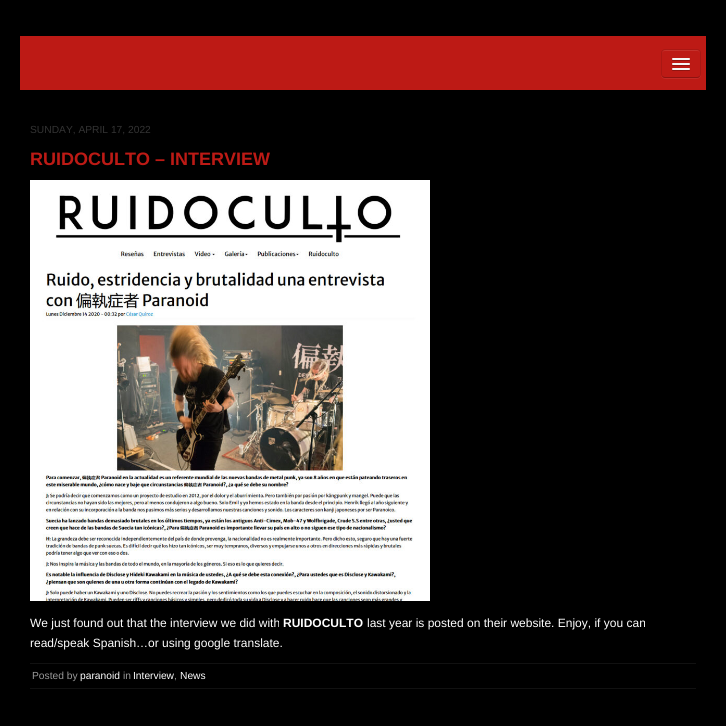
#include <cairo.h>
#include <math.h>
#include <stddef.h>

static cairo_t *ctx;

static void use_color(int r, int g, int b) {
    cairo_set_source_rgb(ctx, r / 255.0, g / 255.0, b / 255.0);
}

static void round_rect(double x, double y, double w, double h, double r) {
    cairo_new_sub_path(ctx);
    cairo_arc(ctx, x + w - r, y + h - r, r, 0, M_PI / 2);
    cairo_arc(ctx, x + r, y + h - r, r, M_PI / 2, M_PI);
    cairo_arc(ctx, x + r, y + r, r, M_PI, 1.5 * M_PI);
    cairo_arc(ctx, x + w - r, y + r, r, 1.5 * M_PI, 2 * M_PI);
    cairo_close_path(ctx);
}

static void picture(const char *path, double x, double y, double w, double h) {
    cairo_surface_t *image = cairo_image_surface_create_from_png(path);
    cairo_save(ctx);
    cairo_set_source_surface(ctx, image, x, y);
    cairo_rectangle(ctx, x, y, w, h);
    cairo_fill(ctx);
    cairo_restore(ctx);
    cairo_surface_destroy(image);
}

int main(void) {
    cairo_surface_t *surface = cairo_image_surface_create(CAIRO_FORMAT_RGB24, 726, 726);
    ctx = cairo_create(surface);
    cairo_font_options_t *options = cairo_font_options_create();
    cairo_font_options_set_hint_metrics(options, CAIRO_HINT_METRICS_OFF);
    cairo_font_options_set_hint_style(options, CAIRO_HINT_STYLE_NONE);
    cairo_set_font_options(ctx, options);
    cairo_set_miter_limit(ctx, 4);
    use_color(0, 0, 0);
    cairo_paint(ctx);
    use_color(189, 26, 21);
    cairo_rectangle(ctx, 20, 36, 686, 54);
    cairo_fill(ctx);
    use_color(194, 43, 39);
    cairo_new_path(ctx);
    cairo_move_to(ctx, 661, 74);
    cairo_curve_to(ctx, 661, 80, 666, 79, 670, 79);
    cairo_line_to(ctx, 692, 79);
    cairo_curve_to(ctx, 696, 79, 701, 80, 701, 74);
    cairo_curve_to(ctx, 701, 76, 699, 78, 697, 78);
    cairo_line_to(ctx, 665, 78);
    cairo_curve_to(ctx, 663, 78, 661, 76, 661, 74);
    cairo_close_path(ctx);
    cairo_fill(ctx);
    use_color(196, 49, 44);
    cairo_new_path(ctx);
    cairo_move_to(ctx, 665, 51);
    cairo_line_to(ctx, 697, 51);
    cairo_curve_to(ctx, 699, 51, 700, 52, 700, 54);
    cairo_curve_to(ctx, 700, 49, 696, 50, 691.5, 50);
    cairo_line_to(ctx, 670.5, 50);
    cairo_curve_to(ctx, 666, 50, 662, 49, 662, 54);
    cairo_curve_to(ctx, 662, 52, 663, 51, 665, 51);
    cairo_close_path(ctx);
    cairo_fill(ctx);
    cairo_new_path(ctx);
    cairo_move_to(ctx, 699.5, 76.5);
    cairo_curve_to(ctx, 699, 77, 698, 77.5, 697, 77.5);
    cairo_line_to(ctx, 665, 77.5);
    cairo_curve_to(ctx, 664, 77.5, 663, 77, 662.5, 76.5);
    cairo_set_source_rgba(ctx, 0, 0, 0, 0.25);
    cairo_set_line_width(ctx, 1);
    cairo_stroke(ctx);
    cairo_new_path(ctx);
    cairo_move_to(ctx, 662.5, 76.5);
    cairo_curve_to(ctx, 662, 76, 661.5, 75, 661.5, 74);
    cairo_line_to(ctx, 661.5, 53);
    cairo_curve_to(ctx, 661.5, 52, 662, 51, 662.5, 50.5);
    cairo_curve_to(ctx, 663, 50, 664, 49.5, 665, 49.5);
    cairo_line_to(ctx, 697, 49.5);
    cairo_curve_to(ctx, 698, 49.5, 699, 50, 699.5, 50.5);
    cairo_curve_to(ctx, 700, 51, 700.5, 52, 700.5, 53);
    cairo_line_to(ctx, 700.5, 74);
    cairo_curve_to(ctx, 700.5, 75, 700, 76, 699.5, 76.5);
    cairo_set_source_rgba(ctx, 0, 0, 0, 0.1);
    cairo_stroke(ctx);
    use_color(142, 20, 16);
    cairo_new_path(ctx);
    cairo_move_to(ctx, 672, 59.5);
    cairo_curve_to(ctx, 671, 61.5, 675.5, 61, 675.5, 61);
    cairo_line_to(ctx, 686.5, 61);
    cairo_curve_to(ctx, 686.5, 61, 691, 61.5, 690, 59.5);
    cairo_curve_to(ctx, 689, 60.5, 682.5, 60, 681, 60);
    cairo_curve_to(ctx, 679.5, 60, 673, 60.5, 672, 59.5);
    cairo_close_path(ctx);
    cairo_fill(ctx);
    use_color(245, 245, 245);
    round_rect(672, 58, 18, 2, 1);
    cairo_fill(ctx);
    use_color(142, 20, 16);
    cairo_new_path(ctx);
    cairo_move_to(ctx, 672, 64.5);
    cairo_curve_to(ctx, 671, 66.5, 675.5, 66, 675.5, 66);
    cairo_line_to(ctx, 686.5, 66);
    cairo_curve_to(ctx, 686.5, 66, 691, 66.5, 690, 64.5);
    cairo_curve_to(ctx, 689, 65.5, 682.5, 65, 681, 65);
    cairo_curve_to(ctx, 679.5, 65, 673, 65.5, 672, 64.5);
    cairo_close_path(ctx);
    cairo_fill(ctx);
    use_color(245, 245, 245);
    round_rect(672, 63, 18, 2, 1);
    cairo_fill(ctx);
    use_color(142, 20, 16);
    cairo_new_path(ctx);
    cairo_move_to(ctx, 672, 69.5);
    cairo_curve_to(ctx, 671, 71.5, 675.5, 71, 675.5, 71);
    cairo_line_to(ctx, 686.5, 71);
    cairo_curve_to(ctx, 686.5, 71, 691, 71.5, 690, 69.5);
    cairo_curve_to(ctx, 689, 70.5, 682.5, 70, 681, 70);
    cairo_curve_to(ctx, 679.5, 70, 673, 70.5, 672, 69.5);
    cairo_close_path(ctx);
    cairo_fill(ctx);
    use_color(245, 245, 245);
    round_rect(672, 68, 18, 2, 1);
    cairo_fill(ctx);
    cairo_select_font_face(ctx, "Liberation Sans", CAIRO_FONT_SLANT_NORMAL, CAIRO_FONT_WEIGHT_NORMAL);
    cairo_set_font_size(ctx, 10.25);
    use_color(51, 51, 51);
    cairo_move_to(ctx, 30, 133);
    cairo_show_text(ctx, "SUNDAY, APRIL 17, 2022");
    cairo_select_font_face(ctx, "Liberation Sans", CAIRO_FONT_SLANT_NORMAL, CAIRO_FONT_WEIGHT_BOLD);
    cairo_set_font_size(ctx, 18);
    use_color(189, 26, 21);
    cairo_move_to(ctx, 30, 165);
    cairo_show_text(ctx, "RUIDOCULTO – INTERVIEW");
    picture("img1.png", 30, 180, 400, 421);
    cairo_select_font_face(ctx, "Liberation Sans", CAIRO_FONT_SLANT_NORMAL, CAIRO_FONT_WEIGHT_NORMAL);
    cairo_set_font_size(ctx, 12);
    use_color(255, 255, 255);
    cairo_move_to(ctx, 30, 627);
    cairo_show_text(ctx, "We just found out that the interview we did with");
    cairo_select_font_face(ctx, "Liberation Sans", CAIRO_FONT_SLANT_NORMAL, CAIRO_FONT_WEIGHT_BOLD);
    cairo_move_to(ctx, 283, 627);
    cairo_show_text(ctx, "RUIDOCULTO");
    cairo_select_font_face(ctx, "Liberation Sans", CAIRO_FONT_SLANT_NORMAL, CAIRO_FONT_WEIGHT_NORMAL);
    cairo_move_to(ctx, 367, 627);
    cairo_show_text(ctx, "last year is posted on their website. Enjoy, if you can");
    cairo_move_to(ctx, 30, 647);
    cairo_show_text(ctx, "read/speak Spanish…or using google translate.");
    use_color(17, 17, 17);
    cairo_rectangle(ctx, 30, 663, 666, 1);
    cairo_fill(ctx);
    cairo_rectangle(ctx, 30, 688, 666, 1);
    cairo_fill(ctx);
    cairo_set_font_size(ctx, 10.25);
    use_color(153, 153, 153);
    cairo_move_to(ctx, 32, 679);
    cairo_show_text(ctx, "Posted by");
    use_color(255, 255, 255);
    cairo_move_to(ctx, 80, 679);
    cairo_show_text(ctx, "paranoid");
    use_color(153, 153, 153);
    cairo_move_to(ctx, 123, 679);
    cairo_show_text(ctx, "in");
    use_color(255, 255, 255);
    cairo_move_to(ctx, 133, 679);
    cairo_show_text(ctx, "Interview");
    use_color(153, 153, 153);
    cairo_move_to(ctx, 174, 679);
    cairo_show_text(ctx, ",");
    use_color(255, 255, 255);
    cairo_move_to(ctx, 180, 679);
    cairo_show_text(ctx, "News");
    cairo_surface_write_to_png(surface, "result.png");
    cairo_font_options_destroy(options);
    cairo_destroy(ctx);
    cairo_surface_destroy(surface);
    return 0;
}
